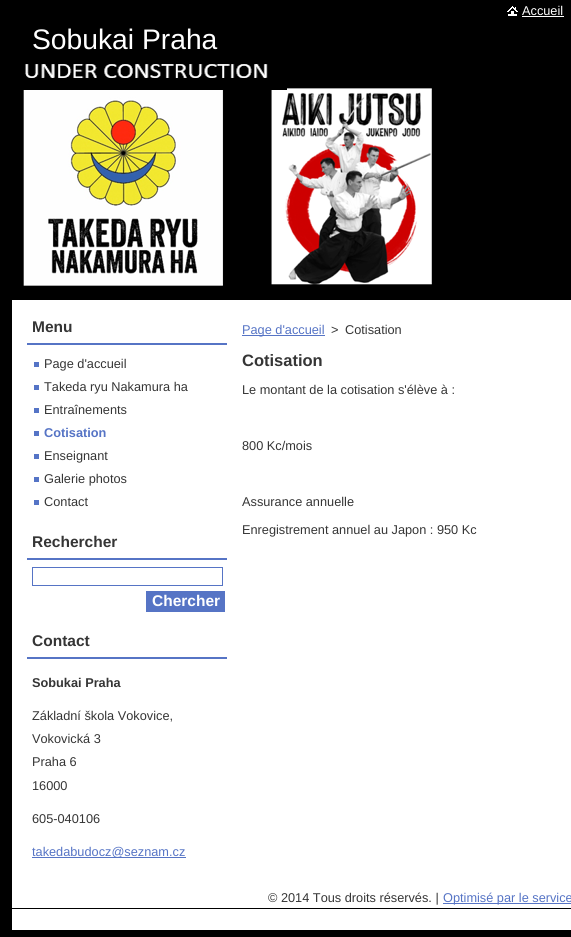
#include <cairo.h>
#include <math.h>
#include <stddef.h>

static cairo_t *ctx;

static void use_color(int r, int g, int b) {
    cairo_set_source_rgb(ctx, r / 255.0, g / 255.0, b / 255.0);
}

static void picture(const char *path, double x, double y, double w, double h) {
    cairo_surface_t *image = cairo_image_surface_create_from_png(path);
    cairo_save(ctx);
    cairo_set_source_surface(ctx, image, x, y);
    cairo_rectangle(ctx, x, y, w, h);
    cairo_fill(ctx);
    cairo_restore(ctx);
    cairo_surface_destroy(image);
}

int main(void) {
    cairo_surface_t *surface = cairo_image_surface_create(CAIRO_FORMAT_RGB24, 571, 937);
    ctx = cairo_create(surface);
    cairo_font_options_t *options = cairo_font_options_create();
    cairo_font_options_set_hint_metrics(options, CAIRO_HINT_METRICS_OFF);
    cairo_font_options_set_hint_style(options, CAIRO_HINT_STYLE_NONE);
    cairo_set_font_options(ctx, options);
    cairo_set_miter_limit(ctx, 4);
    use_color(0, 0, 0);
    cairo_paint(ctx);
    use_color(255, 255, 255);
    cairo_rectangle(ctx, 12, 300, 559, 608);
    cairo_fill(ctx);
    picture("img1.png", 507, 6, 11, 10);
    cairo_select_font_face(ctx, "Liberation Sans", CAIRO_FONT_SLANT_NORMAL, CAIRO_FONT_WEIGHT_NORMAL);
    cairo_set_font_size(ctx, 12.75);
    cairo_move_to(ctx, 522, 15);
    cairo_show_text(ctx, "Accueil");
    cairo_rectangle(ctx, 522, 16, 42, 1);
    cairo_fill(ctx);
    cairo_set_font_size(ctx, 28.25);
    cairo_move_to(ctx, 32, 49);
    cairo_show_text(ctx, "Sobukai Praha");
    picture("img2.png", 23, 64, 409, 222);
    use_color(86, 116, 197);
    cairo_rectangle(ctx, 27, 343, 200, 2);
    cairo_fill(ctx);
    cairo_select_font_face(ctx, "Liberation Sans", CAIRO_FONT_SLANT_NORMAL, CAIRO_FONT_WEIGHT_BOLD);
    cairo_set_font_size(ctx, 15.5);
    use_color(53, 53, 53);
    cairo_move_to(ctx, 32, 332);
    cairo_show_text(ctx, "Menu");
    cairo_select_font_face(ctx, "Liberation Sans", CAIRO_FONT_SLANT_NORMAL, CAIRO_FONT_WEIGHT_NORMAL);
    cairo_set_font_size(ctx, 12.75);
    cairo_move_to(ctx, 44, 368);
    cairo_show_text(ctx, "Page d'accueil");
    use_color(85, 116, 198);
    cairo_rectangle(ctx, 34, 362, 5, 5);
    cairo_fill(ctx);
    use_color(53, 53, 53);
    cairo_move_to(ctx, 44, 391);
    cairo_show_text(ctx, "Takeda ryu Nakamura ha");
    use_color(85, 116, 198);
    cairo_rectangle(ctx, 34, 385, 5, 5);
    cairo_fill(ctx);
    use_color(53, 53, 53);
    cairo_move_to(ctx, 44, 414);
    cairo_show_text(ctx, "Entraînements");
    use_color(85, 116, 198);
    cairo_rectangle(ctx, 34, 408, 5, 5);
    cairo_fill(ctx);
    cairo_select_font_face(ctx, "Liberation Sans", CAIRO_FONT_SLANT_NORMAL, CAIRO_FONT_WEIGHT_BOLD);
    use_color(86, 116, 197);
    cairo_move_to(ctx, 44, 437);
    cairo_show_text(ctx, "Cotisation");
    use_color(85, 116, 198);
    cairo_rectangle(ctx, 34, 431, 5, 5);
    cairo_fill(ctx);
    cairo_select_font_face(ctx, "Liberation Sans", CAIRO_FONT_SLANT_NORMAL, CAIRO_FONT_WEIGHT_NORMAL);
    use_color(53, 53, 53);
    cairo_move_to(ctx, 44, 460);
    cairo_show_text(ctx, "Enseignant");
    use_color(85, 116, 198);
    cairo_rectangle(ctx, 34, 454, 5, 5);
    cairo_fill(ctx);
    use_color(53, 53, 53);
    cairo_move_to(ctx, 44, 483);
    cairo_show_text(ctx, "Galerie photos");
    use_color(85, 116, 198);
    cairo_rectangle(ctx, 34, 477, 5, 5);
    cairo_fill(ctx);
    use_color(53, 53, 53);
    cairo_move_to(ctx, 44, 506);
    cairo_show_text(ctx, "Contact");
    use_color(85, 116, 198);
    cairo_rectangle(ctx, 34, 500, 5, 5);
    cairo_fill(ctx);
    use_color(86, 116, 197);
    cairo_rectangle(ctx, 27, 558, 200, 2);
    cairo_fill(ctx);
    cairo_select_font_face(ctx, "Liberation Sans", CAIRO_FONT_SLANT_NORMAL, CAIRO_FONT_WEIGHT_BOLD);
    cairo_set_font_size(ctx, 15.5);
    use_color(53, 53, 53);
    cairo_move_to(ctx, 32, 547);
    cairo_show_text(ctx, "Rechercher");
    cairo_rectangle(ctx, 32.5, 567.5, 190, 18);
    use_color(86, 116, 197);
    cairo_set_line_width(ctx, 1);
    cairo_stroke(ctx);
    cairo_rectangle(ctx, 146, 591, 79, 21);
    cairo_fill(ctx);
    use_color(255, 255, 255);
    cairo_move_to(ctx, 152, 606);
    cairo_show_text(ctx, "Chercher");
    use_color(86, 116, 197);
    cairo_rectangle(ctx, 27, 657, 200, 2);
    cairo_fill(ctx);
    use_color(53, 53, 53);
    cairo_move_to(ctx, 32, 646);
    cairo_show_text(ctx, "Contact");
    cairo_set_font_size(ctx, 12.75);
    cairo_move_to(ctx, 32, 687);
    cairo_show_text(ctx, "Sobukai Praha");
    cairo_select_font_face(ctx, "Liberation Sans", CAIRO_FONT_SLANT_NORMAL, CAIRO_FONT_WEIGHT_NORMAL);
    cairo_move_to(ctx, 32, 720);
    cairo_show_text(ctx, "Základní škola Vokovice,");
    cairo_move_to(ctx, 32, 743);
    cairo_show_text(ctx, "Vokovická 3");
    cairo_move_to(ctx, 32, 766);
    cairo_show_text(ctx, "Praha 6");
    cairo_move_to(ctx, 32, 790);
    cairo_show_text(ctx, "16000");
    cairo_move_to(ctx, 32, 823);
    cairo_show_text(ctx, "605-040106");
    use_color(86, 116, 197);
    cairo_rectangle(ctx, 32, 857, 154, 1);
    cairo_fill(ctx);
    cairo_move_to(ctx, 32, 856);
    cairo_show_text(ctx, "takedabudocz@seznam.cz");
    cairo_rectangle(ctx, 242, 335, 83, 1);
    cairo_fill(ctx);
    cairo_move_to(ctx, 242, 334);
    cairo_show_text(ctx, "Page d'accueil");
    use_color(53, 53, 53);
    cairo_move_to(ctx, 331, 334);
    cairo_show_text(ctx, ">");
    cairo_move_to(ctx, 345, 334);
    cairo_show_text(ctx, "Cotisation");
    cairo_select_font_face(ctx, "Liberation Sans", CAIRO_FONT_SLANT_NORMAL, CAIRO_FONT_WEIGHT_BOLD);
    cairo_set_font_size(ctx, 16.5);
    cairo_move_to(ctx, 242, 366);
    cairo_show_text(ctx, "Cotisation");
    cairo_select_font_face(ctx, "Liberation Sans", CAIRO_FONT_SLANT_NORMAL, CAIRO_FONT_WEIGHT_NORMAL);
    cairo_set_font_size(ctx, 12.75);
    cairo_move_to(ctx, 242, 394);
    cairo_show_text(ctx, "Le montant de la cotisation s'élève à :");
    cairo_move_to(ctx, 242, 450);
    cairo_show_text(ctx, "800 Kc/mois");
    cairo_move_to(ctx, 242, 506);
    cairo_show_text(ctx, "Assurance annuelle");
    cairo_move_to(ctx, 242, 534);
    cairo_show_text(ctx, "Enregistrement annuel au Japon : 950 Kc");
    use_color(255, 255, 255);
    cairo_rectangle(ctx, 12, 909, 559, 21);
    cairo_fill(ctx);
    use_color(53, 53, 53);
    cairo_move_to(ctx, 268, 902);
    cairo_show_text(ctx, "© 2014 Tous droits réservés. |");
    use_color(86, 116, 197);
    cairo_rectangle(ctx, 443, 903, 128, 1);
    cairo_fill(ctx);
    cairo_move_to(ctx, 443, 902);
    cairo_show_text(ctx, "Optimisé par le service");
    cairo_surface_write_to_png(surface, "result.png");
    cairo_font_options_destroy(options);
    cairo_destroy(ctx);
    cairo_surface_destroy(surface);
    return 0;
}
